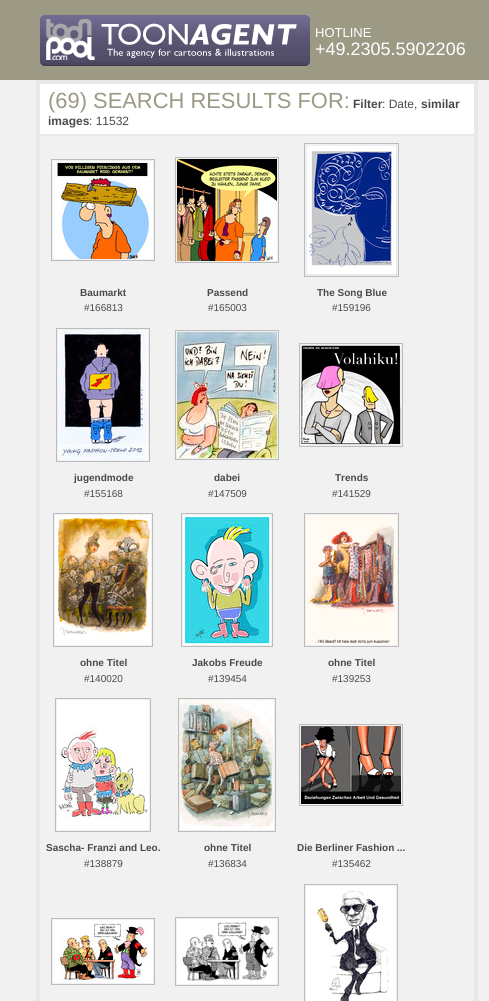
#include <cairo.h>
#include <math.h>
#include <stddef.h>

static cairo_t *ctx;

static void use_color(int r, int g, int b) {
    cairo_set_source_rgb(ctx, r / 255.0, g / 255.0, b / 255.0);
}

static void picture(const char *path, double x, double y, double w, double h) {
    cairo_surface_t *image = cairo_image_surface_create_from_png(path);
    cairo_save(ctx);
    cairo_set_source_surface(ctx, image, x, y);
    cairo_rectangle(ctx, x, y, w, h);
    cairo_fill(ctx);
    cairo_restore(ctx);
    cairo_surface_destroy(image);
}

int main(void) {
    cairo_surface_t *surface = cairo_image_surface_create(CAIRO_FORMAT_RGB24, 489, 1001);
    ctx = cairo_create(surface);
    cairo_font_options_t *options = cairo_font_options_create();
    cairo_font_options_set_hint_metrics(options, CAIRO_HINT_METRICS_OFF);
    cairo_font_options_set_hint_style(options, CAIRO_HINT_STYLE_NONE);
    cairo_set_font_options(ctx, options);
    cairo_set_miter_limit(ctx, 4);
    use_color(241, 241, 241);
    cairo_paint(ctx);
    use_color(156, 153, 132);
    cairo_rectangle(ctx, 0, 0, 489, 80);
    cairo_fill(ctx);
    picture("img1.png", 40, 15, 270, 51);
    cairo_select_font_face(ctx, "Liberation Sans", CAIRO_FONT_SLANT_NORMAL, CAIRO_FONT_WEIGHT_NORMAL);
    cairo_set_font_size(ctx, 13);
    use_color(255, 255, 255);
    cairo_move_to(ctx, 315, 37);
    cairo_show_text(ctx, "HOTLINE");
    cairo_set_font_size(ctx, 18);
    cairo_move_to(ctx, 315, 55);
    cairo_show_text(ctx, "+49.2305.5902206");
    cairo_rectangle(ctx, 38, 82, 438, 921);
    use_color(232, 232, 232);
    cairo_set_line_width(ctx, 4);
    cairo_stroke(ctx);
    use_color(255, 255, 255);
    cairo_rectangle(ctx, 40, 84, 434, 50);
    cairo_fill(ctx);
    cairo_set_font_size(ctx, 21.9);
    use_color(156, 153, 132);
    cairo_move_to(ctx, 48, 108);
    cairo_show_text(ctx, "(69) SEARCH RESULTS FOR:");
    cairo_select_font_face(ctx, "Liberation Sans", CAIRO_FONT_SLANT_NORMAL, CAIRO_FONT_WEIGHT_BOLD);
    cairo_set_font_size(ctx, 12);
    use_color(73, 73, 73);
    cairo_move_to(ctx, 353, 108);
    cairo_show_text(ctx, "Filter");
    cairo_select_font_face(ctx, "Liberation Sans", CAIRO_FONT_SLANT_NORMAL, CAIRO_FONT_WEIGHT_NORMAL);
    cairo_move_to(ctx, 382, 108);
    cairo_show_text(ctx, ": Date,");
    cairo_select_font_face(ctx, "Liberation Sans", CAIRO_FONT_SLANT_NORMAL, CAIRO_FONT_WEIGHT_BOLD);
    cairo_move_to(ctx, 421, 108);
    cairo_show_text(ctx, "similar");
    cairo_move_to(ctx, 48, 125);
    cairo_show_text(ctx, "images");
    cairo_select_font_face(ctx, "Liberation Sans", CAIRO_FONT_SLANT_NORMAL, CAIRO_FONT_WEIGHT_NORMAL);
    cairo_move_to(ctx, 89, 125);
    cairo_show_text(ctx, ": 11532");
    use_color(232, 232, 232);
    cairo_rectangle(ctx, 40, 134, 434, 2);
    cairo_fill(ctx);
    cairo_rectangle(ctx, 51.5, 159.5, 103, 101);
    use_color(187, 187, 187);
    cairo_set_line_width(ctx, 1);
    cairo_stroke(ctx);
    picture("img2.png", 53, 161, 100, 98);
    cairo_select_font_face(ctx, "Liberation Sans", CAIRO_FONT_SLANT_NORMAL, CAIRO_FONT_WEIGHT_BOLD);
    cairo_set_font_size(ctx, 10);
    use_color(73, 73, 73);
    cairo_move_to(ctx, 80, 296);
    cairo_show_text(ctx, "Baumarkt");
    cairo_select_font_face(ctx, "Liberation Sans", CAIRO_FONT_SLANT_NORMAL, CAIRO_FONT_WEIGHT_NORMAL);
    cairo_move_to(ctx, 84, 311);
    cairo_show_text(ctx, "#166813");
    cairo_rectangle(ctx, 175.5, 157.5, 103, 105);
    use_color(187, 187, 187);
    cairo_stroke(ctx);
    picture("img3.png", 177, 159, 100, 102);
    cairo_select_font_face(ctx, "Liberation Sans", CAIRO_FONT_SLANT_NORMAL, CAIRO_FONT_WEIGHT_BOLD);
    use_color(73, 73, 73);
    cairo_move_to(ctx, 207, 296);
    cairo_show_text(ctx, "Passend");
    cairo_select_font_face(ctx, "Liberation Sans", CAIRO_FONT_SLANT_NORMAL, CAIRO_FONT_WEIGHT_NORMAL);
    cairo_move_to(ctx, 208, 311);
    cairo_show_text(ctx, "#165003");
    cairo_rectangle(ctx, 304.5, 143.5, 94, 133);
    use_color(187, 187, 187);
    cairo_stroke(ctx);
    picture("img4.png", 306, 145, 91, 130);
    cairo_select_font_face(ctx, "Liberation Sans", CAIRO_FONT_SLANT_NORMAL, CAIRO_FONT_WEIGHT_BOLD);
    use_color(73, 73, 73);
    cairo_move_to(ctx, 317, 296);
    cairo_show_text(ctx, "The Song Blue");
    cairo_select_font_face(ctx, "Liberation Sans", CAIRO_FONT_SLANT_NORMAL, CAIRO_FONT_WEIGHT_NORMAL);
    cairo_move_to(ctx, 332, 311);
    cairo_show_text(ctx, "#159196");
    cairo_rectangle(ctx, 56.5, 328.5, 93, 133);
    use_color(187, 187, 187);
    cairo_stroke(ctx);
    picture("img5.png", 58, 330, 90, 130);
    cairo_select_font_face(ctx, "Liberation Sans", CAIRO_FONT_SLANT_NORMAL, CAIRO_FONT_WEIGHT_BOLD);
    use_color(73, 73, 73);
    cairo_move_to(ctx, 74, 481);
    cairo_show_text(ctx, "jugendmode");
    cairo_select_font_face(ctx, "Liberation Sans", CAIRO_FONT_SLANT_NORMAL, CAIRO_FONT_WEIGHT_NORMAL);
    cairo_move_to(ctx, 84, 497);
    cairo_show_text(ctx, "#155168");
    cairo_rectangle(ctx, 175.5, 330.5, 103, 129);
    use_color(187, 187, 187);
    cairo_stroke(ctx);
    picture("img6.png", 177, 332, 100, 126);
    cairo_select_font_face(ctx, "Liberation Sans", CAIRO_FONT_SLANT_NORMAL, CAIRO_FONT_WEIGHT_BOLD);
    use_color(73, 73, 73);
    cairo_move_to(ctx, 214, 481);
    cairo_show_text(ctx, "dabei");
    cairo_select_font_face(ctx, "Liberation Sans", CAIRO_FONT_SLANT_NORMAL, CAIRO_FONT_WEIGHT_NORMAL);
    cairo_move_to(ctx, 208, 497);
    cairo_show_text(ctx, "#147509");
    cairo_rectangle(ctx, 299.5, 343.5, 103, 103);
    use_color(187, 187, 187);
    cairo_stroke(ctx);
    picture("img7.png", 301, 345, 100, 100);
    cairo_select_font_face(ctx, "Liberation Sans", CAIRO_FONT_SLANT_NORMAL, CAIRO_FONT_WEIGHT_BOLD);
    use_color(73, 73, 73);
    cairo_move_to(ctx, 335, 481);
    cairo_show_text(ctx, "Trends");
    cairo_select_font_face(ctx, "Liberation Sans", CAIRO_FONT_SLANT_NORMAL, CAIRO_FONT_WEIGHT_NORMAL);
    cairo_move_to(ctx, 332, 497);
    cairo_show_text(ctx, "#141529");
    cairo_rectangle(ctx, 53.5, 513.5, 99, 133);
    use_color(187, 187, 187);
    cairo_stroke(ctx);
    picture("img8.png", 55, 515, 96, 130);
    cairo_select_font_face(ctx, "Liberation Sans", CAIRO_FONT_SLANT_NORMAL, CAIRO_FONT_WEIGHT_BOLD);
    use_color(73, 73, 73);
    cairo_move_to(ctx, 80, 666);
    cairo_show_text(ctx, "ohne Titel");
    cairo_select_font_face(ctx, "Liberation Sans", CAIRO_FONT_SLANT_NORMAL, CAIRO_FONT_WEIGHT_NORMAL);
    cairo_move_to(ctx, 84, 682);
    cairo_show_text(ctx, "#140020");
    cairo_rectangle(ctx, 181.5, 513.5, 91, 133);
    use_color(187, 187, 187);
    cairo_stroke(ctx);
    picture("img9.png", 183, 515, 88, 130);
    cairo_select_font_face(ctx, "Liberation Sans", CAIRO_FONT_SLANT_NORMAL, CAIRO_FONT_WEIGHT_BOLD);
    use_color(73, 73, 73);
    cairo_move_to(ctx, 192, 666);
    cairo_show_text(ctx, "Jakobs Freude");
    cairo_select_font_face(ctx, "Liberation Sans", CAIRO_FONT_SLANT_NORMAL, CAIRO_FONT_WEIGHT_NORMAL);
    cairo_move_to(ctx, 208, 682);
    cairo_show_text(ctx, "#139454");
    cairo_rectangle(ctx, 304.5, 513.5, 94, 133);
    use_color(187, 187, 187);
    cairo_stroke(ctx);
    picture("img10.png", 306, 515, 91, 130);
    cairo_select_font_face(ctx, "Liberation Sans", CAIRO_FONT_SLANT_NORMAL, CAIRO_FONT_WEIGHT_BOLD);
    use_color(73, 73, 73);
    cairo_move_to(ctx, 328, 666);
    cairo_show_text(ctx, "ohne Titel");
    cairo_select_font_face(ctx, "Liberation Sans", CAIRO_FONT_SLANT_NORMAL, CAIRO_FONT_WEIGHT_NORMAL);
    cairo_move_to(ctx, 332, 682);
    cairo_show_text(ctx, "#139253");
    cairo_rectangle(ctx, 55.5, 698.5, 95, 133);
    use_color(187, 187, 187);
    cairo_stroke(ctx);
    picture("img11.png", 57, 700, 92, 130);
    cairo_select_font_face(ctx, "Liberation Sans", CAIRO_FONT_SLANT_NORMAL, CAIRO_FONT_WEIGHT_BOLD);
    use_color(73, 73, 73);
    cairo_move_to(ctx, 46, 851);
    cairo_show_text(ctx, "Sascha- Franzi and Leo.");
    cairo_select_font_face(ctx, "Liberation Sans", CAIRO_FONT_SLANT_NORMAL, CAIRO_FONT_WEIGHT_NORMAL);
    cairo_move_to(ctx, 84, 867);
    cairo_show_text(ctx, "#138879");
    cairo_rectangle(ctx, 178.5, 698.5, 97, 133);
    use_color(187, 187, 187);
    cairo_stroke(ctx);
    picture("img12.png", 180, 700, 94, 130);
    cairo_select_font_face(ctx, "Liberation Sans", CAIRO_FONT_SLANT_NORMAL, CAIRO_FONT_WEIGHT_BOLD);
    use_color(73, 73, 73);
    cairo_move_to(ctx, 204, 851);
    cairo_show_text(ctx, "ohne Titel");
    cairo_select_font_face(ctx, "Liberation Sans", CAIRO_FONT_SLANT_NORMAL, CAIRO_FONT_WEIGHT_NORMAL);
    cairo_move_to(ctx, 208, 867);
    cairo_show_text(ctx, "#136834");
    cairo_rectangle(ctx, 299.5, 724.5, 103, 81);
    use_color(187, 187, 187);
    cairo_stroke(ctx);
    picture("img13.png", 301, 726, 100, 78);
    cairo_select_font_face(ctx, "Liberation Sans", CAIRO_FONT_SLANT_NORMAL, CAIRO_FONT_WEIGHT_BOLD);
    use_color(73, 73, 73);
    cairo_move_to(ctx, 297, 851);
    cairo_show_text(ctx, "Die Berliner Fashion ...");
    cairo_select_font_face(ctx, "Liberation Sans", CAIRO_FONT_SLANT_NORMAL, CAIRO_FONT_WEIGHT_NORMAL);
    cairo_move_to(ctx, 332, 867);
    cairo_show_text(ctx, "#135462");
    cairo_rectangle(ctx, 51.5, 918.5, 103, 66);
    use_color(187, 187, 187);
    cairo_stroke(ctx);
    picture("img14.png", 53, 920, 100, 63);
    cairo_rectangle(ctx, 175.5, 917.5, 103, 68);
    cairo_stroke(ctx);
    picture("img15.png", 177, 919, 100, 65);
    cairo_rectangle(ctx, 304.5, 884.5, 93, 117);
    cairo_stroke(ctx);
    picture("img16.png", 306, 886, 90, 115);
    cairo_surface_write_to_png(surface, "result.png");
    cairo_font_options_destroy(options);
    cairo_destroy(ctx);
    cairo_surface_destroy(surface);
    return 0;
}
